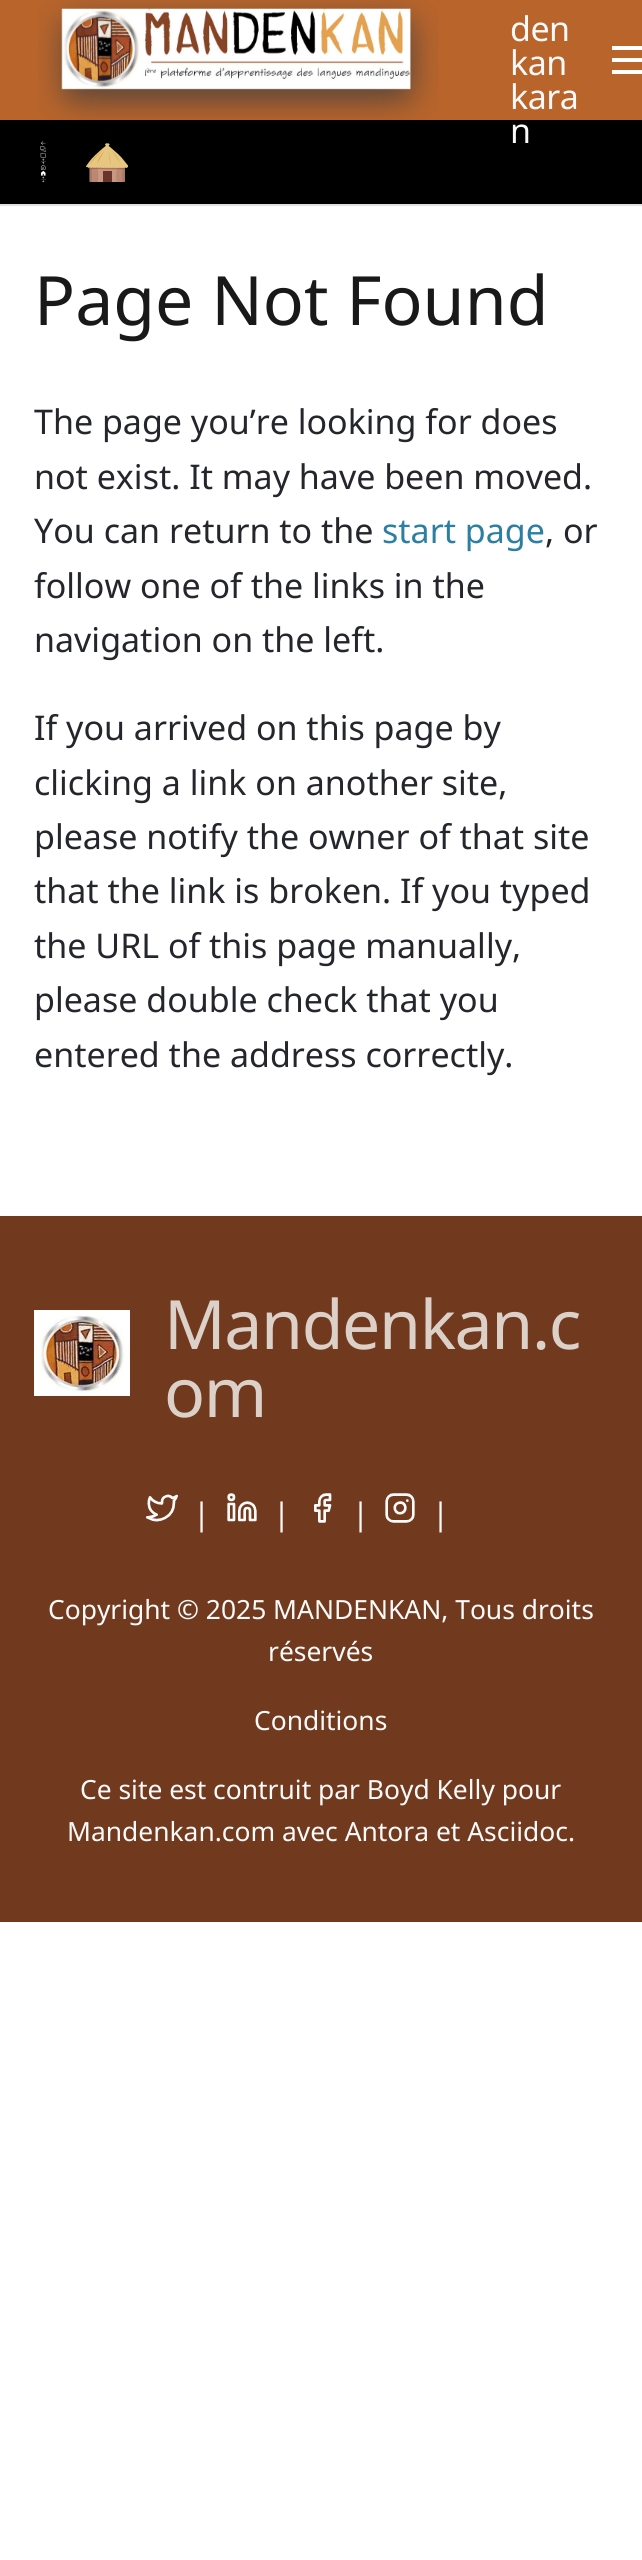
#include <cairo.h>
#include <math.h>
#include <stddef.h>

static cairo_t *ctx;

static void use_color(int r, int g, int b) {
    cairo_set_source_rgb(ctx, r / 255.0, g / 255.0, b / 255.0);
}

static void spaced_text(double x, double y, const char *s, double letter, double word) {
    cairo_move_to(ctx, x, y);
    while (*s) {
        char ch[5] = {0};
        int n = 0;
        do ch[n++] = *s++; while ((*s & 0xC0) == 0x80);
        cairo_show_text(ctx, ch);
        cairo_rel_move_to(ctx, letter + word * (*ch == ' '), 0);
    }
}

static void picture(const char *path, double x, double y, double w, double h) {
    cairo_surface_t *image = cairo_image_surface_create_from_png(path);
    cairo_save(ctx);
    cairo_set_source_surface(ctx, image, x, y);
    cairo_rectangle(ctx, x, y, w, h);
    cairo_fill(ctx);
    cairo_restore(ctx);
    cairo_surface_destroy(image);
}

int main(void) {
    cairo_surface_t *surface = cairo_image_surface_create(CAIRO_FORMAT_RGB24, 642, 2560);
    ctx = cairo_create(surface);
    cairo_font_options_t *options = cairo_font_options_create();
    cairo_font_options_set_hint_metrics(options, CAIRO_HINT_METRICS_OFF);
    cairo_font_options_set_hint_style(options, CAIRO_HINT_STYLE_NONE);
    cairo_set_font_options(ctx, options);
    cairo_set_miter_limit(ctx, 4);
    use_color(255, 255, 255);
    cairo_paint(ctx);
    use_color(184, 100, 43);
    cairo_rectangle(ctx, 0, 0, 642, 120);
    cairo_fill(ctx);
    use_color(0, 0, 0);
    cairo_rectangle(ctx, 0, 120, 642, 84);
    cairo_fill(ctx);
    picture("img1.png", 38, 0, 400, 122);
    cairo_select_font_face(ctx, "Noto Sans", CAIRO_FONT_SLANT_NORMAL, CAIRO_FONT_WEIGHT_NORMAL);
    cairo_set_font_size(ctx, 34);
    use_color(250, 250, 250);
    spaced_text(510, 41, "den", -0.5, 0);
    spaced_text(510, 75, "kan", -0.5, 0);
    spaced_text(510, 109, "kara", -0.5, 0);
    spaced_text(510, 143, "n", -0.5, 0);
    use_color(255, 255, 255);
    cairo_rectangle(ctx, 612, 46, 30, 4);
    cairo_fill(ctx);
    cairo_rectangle(ctx, 612, 58, 30, 4);
    cairo_fill(ctx);
    cairo_rectangle(ctx, 612, 70, 30, 4);
    cairo_fill(ctx);
    use_color(225, 225, 225);
    cairo_rectangle(ctx, 0, 204, 642, 2);
    cairo_fill(ctx);
    picture("img2.png", 40, 141, 6, 41);
    picture("img3.png", 86, 143, 42, 39);
    cairo_set_font_size(ctx, 68);
    use_color(25, 25, 25);
    cairo_move_to(ctx, 34, 325);
    cairo_show_text(ctx, "Page Not Found");
    cairo_set_font_size(ctx, 34);
    use_color(36, 38, 43);
    cairo_move_to(ctx, 34, 434);
    cairo_show_text(ctx, "The page you’re looking for does");
    cairo_move_to(ctx, 34, 489);
    cairo_show_text(ctx, "not exist. It may have been moved.");
    cairo_move_to(ctx, 34, 543);
    cairo_show_text(ctx, "You can return to the");
    use_color(44, 127, 162);
    cairo_move_to(ctx, 382, 543);
    cairo_show_text(ctx, "start page");
    use_color(36, 38, 43);
    cairo_move_to(ctx, 545, 543);
    cairo_show_text(ctx, ", or");
    cairo_move_to(ctx, 34, 598);
    cairo_show_text(ctx, "follow one of the links in the");
    cairo_move_to(ctx, 34, 652);
    cairo_show_text(ctx, "navigation on the left.");
    cairo_move_to(ctx, 34, 740);
    cairo_show_text(ctx, "If you arrived on this page by");
    cairo_move_to(ctx, 34, 795);
    cairo_show_text(ctx, "clicking a link on another site,");
    cairo_move_to(ctx, 34, 849);
    cairo_show_text(ctx, "please notify the owner of that site");
    cairo_move_to(ctx, 34, 903);
    cairo_show_text(ctx, "that the link is broken. If you typed");
    cairo_move_to(ctx, 34, 958);
    cairo_show_text(ctx, "the URL of this page manually,");
    cairo_move_to(ctx, 34, 1012);
    cairo_show_text(ctx, "please double check that you");
    cairo_move_to(ctx, 34, 1067);
    cairo_show_text(ctx, "entered the address correctly.");
    use_color(113, 58, 31);
    cairo_rectangle(ctx, 0, 1216, 642, 706);
    cairo_fill(ctx);
    picture("img4.png", 34, 1310, 96, 86);
    cairo_set_font_size(ctx, 68);
    use_color(220, 209, 201);
    spaced_text(164, 1349, "Mandenkan.c", -1.4, 0);
    spaced_text(164, 1417, "om", -1.4, 0);
    picture("img5.png", 146, 1494, 32, 28);
    cairo_set_font_size(ctx, 31);
    use_color(250, 250, 250);
    cairo_move_to(ctx, 193, 1525);
    cairo_show_text(ctx, "|");
    picture("img6.png", 227, 1493, 30, 29);
    cairo_move_to(ctx, 273, 1525);
    cairo_show_text(ctx, "|");
    picture("img7.png", 314, 1493, 18, 30);
    cairo_move_to(ctx, 352, 1525);
    cairo_show_text(ctx, "|");
    picture("img8.png", 385, 1493, 30, 30);
    cairo_move_to(ctx, 432, 1525);
    cairo_show_text(ctx, "|");
    cairo_set_font_size(ctx, 26.4);
    cairo_move_to(ctx, 48, 1619);
    cairo_show_text(ctx, "Copyright © 2025 MANDENKAN, Tous droits");
    cairo_move_to(ctx, 268, 1661);
    cairo_show_text(ctx, "réservés");
    cairo_move_to(ctx, 254, 1730);
    cairo_show_text(ctx, "Conditions");
    cairo_move_to(ctx, 80, 1799);
    cairo_show_text(ctx, "Ce site est contruit par Boyd Kelly pour");
    cairo_move_to(ctx, 67, 1841);
    cairo_show_text(ctx, "Mandenkan.com avec Antora et Asciidoc.");
    cairo_surface_write_to_png(surface, "result.png");
    cairo_font_options_destroy(options);
    cairo_destroy(ctx);
    cairo_surface_destroy(surface);
    return 0;
}
